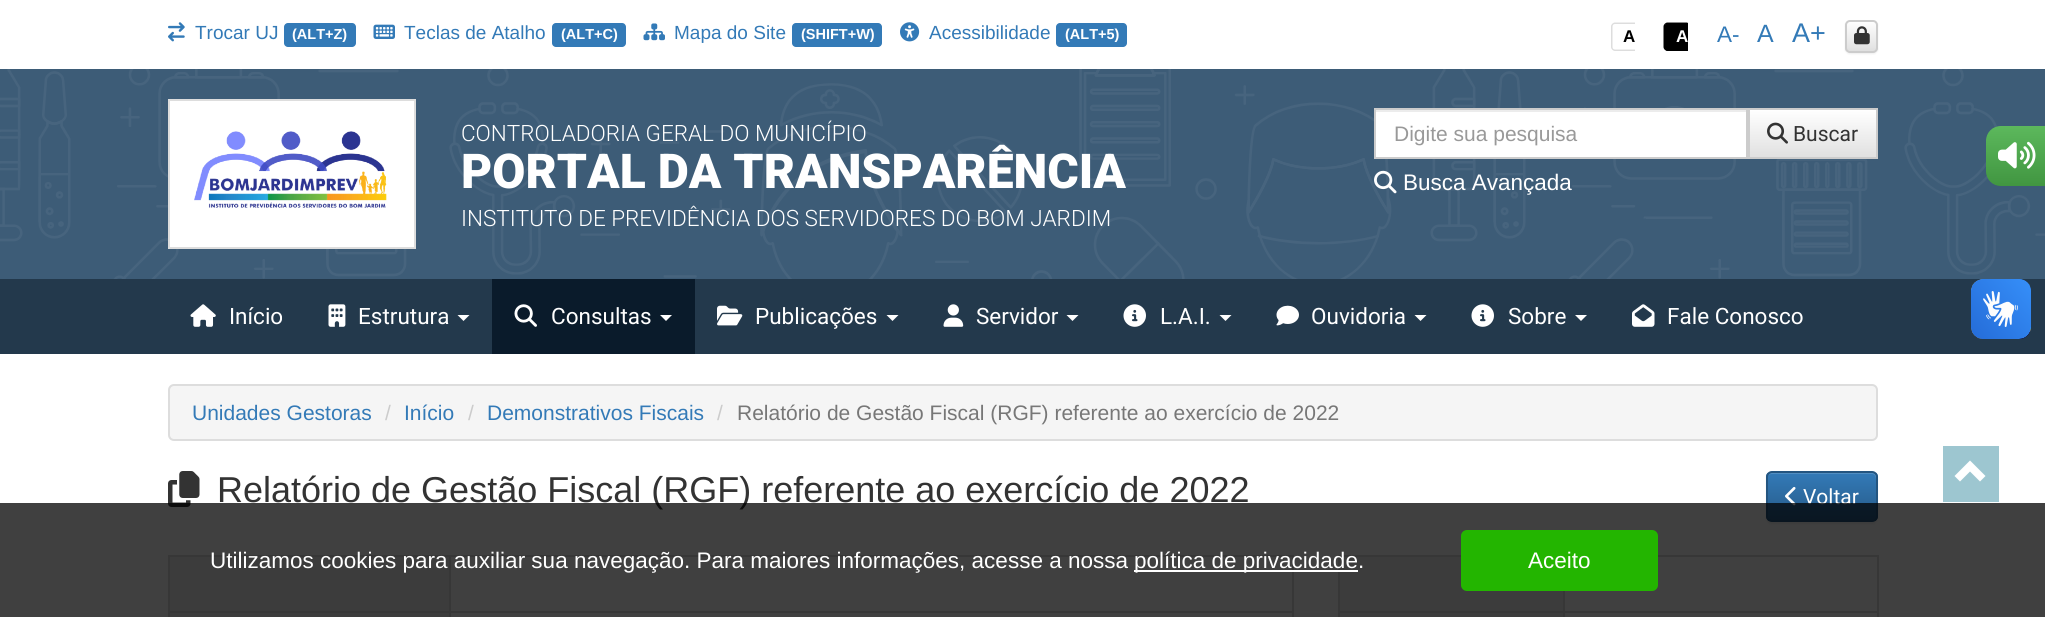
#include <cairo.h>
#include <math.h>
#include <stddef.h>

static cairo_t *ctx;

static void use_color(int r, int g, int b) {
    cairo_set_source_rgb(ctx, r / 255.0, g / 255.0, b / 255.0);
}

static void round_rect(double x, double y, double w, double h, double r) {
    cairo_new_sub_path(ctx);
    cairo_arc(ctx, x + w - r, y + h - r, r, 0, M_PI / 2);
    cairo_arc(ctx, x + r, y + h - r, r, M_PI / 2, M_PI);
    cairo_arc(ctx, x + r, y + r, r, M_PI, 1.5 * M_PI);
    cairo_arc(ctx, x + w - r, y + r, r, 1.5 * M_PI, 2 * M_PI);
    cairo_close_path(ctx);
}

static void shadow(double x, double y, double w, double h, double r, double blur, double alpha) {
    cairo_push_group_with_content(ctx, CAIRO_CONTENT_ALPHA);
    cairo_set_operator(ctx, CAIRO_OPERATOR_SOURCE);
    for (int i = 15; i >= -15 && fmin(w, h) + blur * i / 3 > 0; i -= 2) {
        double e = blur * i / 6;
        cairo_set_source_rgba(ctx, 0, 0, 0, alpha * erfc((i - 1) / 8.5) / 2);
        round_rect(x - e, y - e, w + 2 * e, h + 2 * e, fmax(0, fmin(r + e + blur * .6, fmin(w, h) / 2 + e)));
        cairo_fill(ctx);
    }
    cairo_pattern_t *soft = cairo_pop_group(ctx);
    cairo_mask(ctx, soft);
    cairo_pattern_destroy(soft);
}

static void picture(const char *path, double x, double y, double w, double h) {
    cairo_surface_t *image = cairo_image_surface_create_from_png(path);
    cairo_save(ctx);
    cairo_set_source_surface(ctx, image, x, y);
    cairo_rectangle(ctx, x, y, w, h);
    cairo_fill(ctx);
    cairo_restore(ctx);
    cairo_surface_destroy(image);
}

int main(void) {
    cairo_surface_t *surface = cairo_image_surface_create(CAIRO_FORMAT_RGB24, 2045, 617);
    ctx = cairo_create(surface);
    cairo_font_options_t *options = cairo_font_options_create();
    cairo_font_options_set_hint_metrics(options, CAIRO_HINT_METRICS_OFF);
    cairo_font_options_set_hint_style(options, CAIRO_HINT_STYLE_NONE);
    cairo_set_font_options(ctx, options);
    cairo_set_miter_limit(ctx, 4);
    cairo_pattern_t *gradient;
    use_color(255, 255, 255);
    cairo_paint(ctx);
    picture("img1.png", 168, 22, 17, 20);
    cairo_select_font_face(ctx, "Liberation Sans", CAIRO_FONT_SLANT_NORMAL, CAIRO_FONT_WEIGHT_NORMAL);
    cairo_set_font_size(ctx, 19);
    use_color(51, 122, 183);
    cairo_move_to(ctx, 195, 39);
    cairo_show_text(ctx, "Trocar UJ");
    round_rect(284, 23, 72, 24, 4);
    cairo_fill(ctx);
    cairo_select_font_face(ctx, "Liberation Sans", CAIRO_FONT_SLANT_NORMAL, CAIRO_FONT_WEIGHT_BOLD);
    cairo_set_font_size(ctx, 14.5);
    use_color(255, 255, 255);
    cairo_move_to(ctx, 292, 39);
    cairo_show_text(ctx, "(ALT+Z)");
    picture("img2.png", 373, 24, 22, 15);
    cairo_select_font_face(ctx, "Liberation Sans", CAIRO_FONT_SLANT_NORMAL, CAIRO_FONT_WEIGHT_NORMAL);
    cairo_set_font_size(ctx, 19);
    use_color(51, 122, 183);
    cairo_move_to(ctx, 404, 39);
    cairo_show_text(ctx, "Teclas de Atalho");
    round_rect(552, 23, 74, 24, 4);
    cairo_fill(ctx);
    cairo_select_font_face(ctx, "Liberation Sans", CAIRO_FONT_SLANT_NORMAL, CAIRO_FONT_WEIGHT_BOLD);
    cairo_set_font_size(ctx, 14.5);
    use_color(255, 255, 255);
    cairo_move_to(ctx, 561, 39);
    cairo_show_text(ctx, "(ALT+C)");
    picture("img3.png", 643, 23, 22, 18);
    cairo_select_font_face(ctx, "Liberation Sans", CAIRO_FONT_SLANT_NORMAL, CAIRO_FONT_WEIGHT_NORMAL);
    cairo_set_font_size(ctx, 19);
    use_color(51, 122, 183);
    cairo_move_to(ctx, 674, 39);
    cairo_show_text(ctx, "Mapa do Site");
    round_rect(792, 23, 90, 24, 4);
    cairo_fill(ctx);
    cairo_select_font_face(ctx, "Liberation Sans", CAIRO_FONT_SLANT_NORMAL, CAIRO_FONT_WEIGHT_BOLD);
    cairo_set_font_size(ctx, 14.5);
    use_color(255, 255, 255);
    cairo_move_to(ctx, 801, 39);
    cairo_show_text(ctx, "(SHIFT+W)");
    picture("img4.png", 900, 22, 20, 20);
    cairo_select_font_face(ctx, "Liberation Sans", CAIRO_FONT_SLANT_NORMAL, CAIRO_FONT_WEIGHT_NORMAL);
    cairo_set_font_size(ctx, 19);
    use_color(51, 122, 183);
    cairo_move_to(ctx, 929, 39);
    cairo_show_text(ctx, "Acessibilidade");
    round_rect(1056, 23, 71, 24, 4);
    cairo_fill(ctx);
    cairo_select_font_face(ctx, "Liberation Sans", CAIRO_FONT_SLANT_NORMAL, CAIRO_FONT_WEIGHT_BOLD);
    cairo_set_font_size(ctx, 14.5);
    use_color(255, 255, 255);
    cairo_move_to(ctx, 1065, 39);
    cairo_show_text(ctx, "(ALT+5)");
    use_color(221, 221, 221);
    cairo_set_fill_rule(ctx, CAIRO_FILL_RULE_EVEN_ODD);
    cairo_new_path(ctx);
    cairo_move_to(ctx, 1615, 22.5);
    cairo_line_to(ctx, 1635, 22.5);
    cairo_line_to(ctx, 1635, 51);
    cairo_line_to(ctx, 1615, 51);
    cairo_curve_to(ctx, 1613, 51, 1611, 49, 1611, 47);
    cairo_line_to(ctx, 1611, 26.5);
    cairo_curve_to(ctx, 1611, 24.5, 1613, 22.5, 1615, 22.5);
    cairo_close_path(ctx);
    cairo_move_to(ctx, 1615, 24);
    cairo_line_to(ctx, 1635, 24);
    cairo_line_to(ctx, 1635, 49.5);
    cairo_line_to(ctx, 1615, 49.5);
    cairo_curve_to(ctx, 1613.5, 49.5, 1612.5, 48.5, 1612.5, 47);
    cairo_line_to(ctx, 1612.5, 26.5);
    cairo_curve_to(ctx, 1612.5, 25, 1613.5, 24, 1615, 24);
    cairo_close_path(ctx);
    cairo_fill(ctx);
    cairo_set_font_size(ctx, 17);
    use_color(0, 0, 0);
    cairo_move_to(ctx, 1623, 42);
    cairo_show_text(ctx, "A");
    cairo_new_path(ctx);
    cairo_move_to(ctx, 1669, 23);
    cairo_line_to(ctx, 1688, 23);
    cairo_line_to(ctx, 1688, 51);
    cairo_line_to(ctx, 1669, 51);
    cairo_curve_to(ctx, 1666, 51, 1664, 49, 1664, 46);
    cairo_line_to(ctx, 1664, 28);
    cairo_curve_to(ctx, 1664, 25, 1666, 23, 1669, 23);
    cairo_close_path(ctx);
    cairo_fill(ctx);
    cairo_new_path(ctx);
    cairo_move_to(ctx, 1667.5, 22.5);
    cairo_line_to(ctx, 1687.5, 22.5);
    cairo_line_to(ctx, 1687.5, 51);
    cairo_line_to(ctx, 1667.5, 51);
    cairo_curve_to(ctx, 1665.5, 51, 1663.5, 49, 1663.5, 47);
    cairo_line_to(ctx, 1663.5, 26.5);
    cairo_curve_to(ctx, 1663.5, 24.5, 1665.5, 22.5, 1667.5, 22.5);
    cairo_close_path(ctx);
    cairo_move_to(ctx, 1667.5, 24);
    cairo_line_to(ctx, 1687.5, 24);
    cairo_line_to(ctx, 1687.5, 49.5);
    cairo_line_to(ctx, 1667.5, 49.5);
    cairo_curve_to(ctx, 1666, 49.5, 1665, 48.5, 1665, 47);
    cairo_line_to(ctx, 1665, 26.5);
    cairo_curve_to(ctx, 1665, 25, 1666, 24, 1667.5, 24);
    cairo_close_path(ctx);
    cairo_fill(ctx);
    use_color(255, 255, 255);
    cairo_move_to(ctx, 1676, 42);
    cairo_show_text(ctx, "A");
    cairo_select_font_face(ctx, "Liberation Sans", CAIRO_FONT_SLANT_NORMAL, CAIRO_FONT_WEIGHT_NORMAL);
    cairo_set_font_size(ctx, 22.5);
    use_color(51, 122, 183);
    cairo_move_to(ctx, 1717, 42);
    cairo_show_text(ctx, "A-");
    cairo_set_font_size(ctx, 25);
    cairo_move_to(ctx, 1757, 42);
    cairo_show_text(ctx, "A");
    cairo_set_font_size(ctx, 27);
    cairo_move_to(ctx, 1792, 42);
    cairo_show_text(ctx, "A+");
    use_color(0, 0, 0);
    shadow(1845, 21, 33, 33, 5, 1, 0.07);
    cairo_save(ctx);
    cairo_set_fill_rule(ctx, CAIRO_FILL_RULE_WINDING);
    round_rect(1845, 20, 33, 33, 5);
    cairo_clip(ctx);
    gradient = cairo_pattern_create_linear(1862, 21, 1862, 51);
    cairo_pattern_add_color_stop_rgba(gradient, 0, 1, 1, 1, 1);
    cairo_pattern_add_color_stop_rgba(gradient, 1, 0.878, 0.878, 0.878, 1);
    cairo_set_source(ctx, gradient);
    cairo_pattern_destroy(gradient);
    cairo_rectangle(ctx, 1845, 21, 33, 30);
    cairo_fill(ctx);
    cairo_restore(ctx);
    round_rect(1846, 21, 31, 31, 4);
    use_color(204, 204, 204);
    cairo_stroke(ctx);
    picture("img5.png", 1854, 26, 16, 19);
    use_color(61, 92, 119);
    cairo_rectangle(ctx, 0, 69, 2045, 210);
    cairo_fill(ctx);
    picture("img6.png", 0, 69, 2045, 210);
    use_color(255, 255, 255);
    cairo_rectangle(ctx, 169, 100, 246, 148);
    cairo_fill_preserve(ctx);
    use_color(221, 221, 221);
    cairo_stroke(ctx);
    picture("img7.png", 194, 131, 193, 77);
    cairo_select_font_face(ctx, "Roboto Light", CAIRO_FONT_SLANT_NORMAL, CAIRO_FONT_WEIGHT_NORMAL);
    cairo_set_font_size(ctx, 22.5);
    use_color(255, 255, 255);
    cairo_move_to(ctx, 461, 141);
    cairo_show_text(ctx, "CONTROLADORIA GERAL DO MUNICÍPIO");
    cairo_select_font_face(ctx, "Roboto Black", CAIRO_FONT_SLANT_NORMAL, CAIRO_FONT_WEIGHT_NORMAL);
    cairo_set_font_size(ctx, 48);
    cairo_move_to(ctx, 461, 188);
    cairo_show_text(ctx, "PORTAL DA TRANSPARÊNCIA");
    cairo_select_font_face(ctx, "Roboto Light", CAIRO_FONT_SLANT_NORMAL, CAIRO_FONT_WEIGHT_NORMAL);
    cairo_set_font_size(ctx, 22.5);
    cairo_move_to(ctx, 461, 226);
    cairo_show_text(ctx, "INSTITUTO DE PREVIDÊNCIA DOS SERVIDORES DO BOM JARDIM");
    cairo_rectangle(ctx, 1376, 112, 370, 45);
    cairo_fill(ctx);
    use_color(236, 236, 236);
    cairo_rectangle(ctx, 1376, 110, 370, 2);
    cairo_fill(ctx);
    cairo_rectangle(ctx, 1375, 109, 372, 49);
    use_color(204, 204, 204);
    cairo_stroke(ctx);
    cairo_select_font_face(ctx, "Liberation Sans", CAIRO_FONT_SLANT_NORMAL, CAIRO_FONT_WEIGHT_NORMAL);
    cairo_set_font_size(ctx, 21);
    use_color(153, 153, 153);
    cairo_move_to(ctx, 1394, 141);
    cairo_show_text(ctx, "Digite sua pesquisa");
    gradient = cairo_pattern_create_linear(1813, 110, 1813, 158);
    cairo_pattern_add_color_stop_rgba(gradient, 0, 1, 1, 1, 1);
    cairo_pattern_add_color_stop_rgba(gradient, 1, 0.878, 0.878, 0.878, 1);
    cairo_set_source(ctx, gradient);
    cairo_pattern_destroy(gradient);
    cairo_rectangle(ctx, 1750, 110, 126, 47);
    cairo_fill(ctx);
    cairo_rectangle(ctx, 1749, 109, 128, 49);
    use_color(204, 204, 204);
    cairo_stroke(ctx);
    picture("img8.png", 1767, 122, 21, 22);
    cairo_select_font_face(ctx, "Roboto", CAIRO_FONT_SLANT_NORMAL, CAIRO_FONT_WEIGHT_NORMAL);
    use_color(51, 51, 51);
    cairo_move_to(ctx, 1793, 141);
    cairo_show_text(ctx, "Buscar");
    picture("img9.png", 1374, 170, 23, 24);
    cairo_select_font_face(ctx, "Liberation Sans", CAIRO_FONT_SLANT_NORMAL, CAIRO_FONT_WEIGHT_NORMAL);
    cairo_set_font_size(ctx, 22.5);
    use_color(255, 255, 255);
    cairo_move_to(ctx, 1403, 190);
    cairo_show_text(ctx, "Busca Avançada");
    use_color(35, 57, 76);
    cairo_rectangle(ctx, 0, 279, 2045, 75);
    cairo_fill(ctx);
    picture("img10.png", 190, 304, 26, 23);
    cairo_select_font_face(ctx, "Roboto", CAIRO_FONT_SLANT_NORMAL, CAIRO_FONT_WEIGHT_NORMAL);
    use_color(255, 255, 255);
    cairo_move_to(ctx, 229, 324);
    cairo_show_text(ctx, "Início");
    picture("img11.png", 328, 304, 18, 23);
    cairo_move_to(ctx, 358, 324);
    cairo_show_text(ctx, "Estrutura");
    cairo_set_fill_rule(ctx, CAIRO_FILL_RULE_WINDING);
    cairo_new_path(ctx);
    cairo_move_to(ctx, 457.5, 315);
    cairo_line_to(ctx, 469.5, 315);
    cairo_line_to(ctx, 463.5, 321);
    cairo_close_path(ctx);
    cairo_fill(ctx);
    use_color(10, 27, 43);
    cairo_rectangle(ctx, 492, 279, 203, 75);
    cairo_fill(ctx);
    picture("img12.png", 514, 304, 23, 23);
    use_color(255, 255, 255);
    cairo_move_to(ctx, 551, 324);
    cairo_show_text(ctx, "Consultas");
    cairo_new_path(ctx);
    cairo_move_to(ctx, 660, 315);
    cairo_line_to(ctx, 672, 315);
    cairo_line_to(ctx, 666, 321);
    cairo_close_path(ctx);
    cairo_fill(ctx);
    picture("img13.png", 717, 305, 26, 21);
    cairo_move_to(ctx, 755, 324);
    cairo_show_text(ctx, "Publicações");
    cairo_new_path(ctx);
    cairo_move_to(ctx, 886.5, 315);
    cairo_line_to(ctx, 898.5, 315);
    cairo_line_to(ctx, 892.5, 321);
    cairo_close_path(ctx);
    cairo_fill(ctx);
    picture("img14.png", 943, 304, 21, 23);
    cairo_move_to(ctx, 976, 324);
    cairo_show_text(ctx, "Servidor");
    cairo_new_path(ctx);
    cairo_move_to(ctx, 1066.5, 315);
    cairo_line_to(ctx, 1078.5, 315);
    cairo_line_to(ctx, 1072.5, 321);
    cairo_close_path(ctx);
    cairo_fill(ctx);
    picture("img15.png", 1123, 304, 23, 23);
    cairo_move_to(ctx, 1160, 324);
    cairo_show_text(ctx, "L.A.I.");
    cairo_new_path(ctx);
    cairo_move_to(ctx, 1219.5, 315);
    cairo_line_to(ctx, 1231.5, 315);
    cairo_line_to(ctx, 1225.5, 321);
    cairo_close_path(ctx);
    cairo_fill(ctx);
    picture("img16.png", 1276, 305, 23, 21);
    cairo_move_to(ctx, 1311, 324);
    cairo_show_text(ctx, "Ouvidoria");
    cairo_new_path(ctx);
    cairo_move_to(ctx, 1414.5, 315);
    cairo_line_to(ctx, 1426.5, 315);
    cairo_line_to(ctx, 1420.5, 321);
    cairo_close_path(ctx);
    cairo_fill(ctx);
    picture("img15.png", 1471, 304, 23, 23);
    cairo_move_to(ctx, 1508, 324);
    cairo_show_text(ctx, "Sobre");
    cairo_new_path(ctx);
    cairo_move_to(ctx, 1575, 315);
    cairo_line_to(ctx, 1587, 315);
    cairo_line_to(ctx, 1581, 321);
    cairo_close_path(ctx);
    cairo_fill(ctx);
    picture("img17.png", 1632, 304, 23, 23);
    cairo_move_to(ctx, 1667, 324);
    cairo_show_text(ctx, "Fale Conosco");
    gradient = cairo_pattern_create_linear(2016, 126, 2016, 186);
    cairo_pattern_add_color_stop_rgba(gradient, 0, 0.361, 0.722, 0.361, 1);
    cairo_pattern_add_color_stop_rgba(gradient, 1, 0.255, 0.588, 0.255, 1);
    cairo_set_source(ctx, gradient);
    cairo_pattern_destroy(gradient);
    cairo_new_path(ctx);
    cairo_move_to(ctx, 2001, 126);
    cairo_line_to(ctx, 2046, 126);
    cairo_line_to(ctx, 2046, 186);
    cairo_line_to(ctx, 2001, 186);
    cairo_curve_to(ctx, 1992.5, 186, 1986, 179.5, 1986, 171);
    cairo_line_to(ctx, 1986, 141);
    cairo_curve_to(ctx, 1986, 132.5, 1992.5, 126, 2001, 126);
    cairo_close_path(ctx);
    cairo_fill(ctx);
    picture("img18.png", 1998, 141, 38, 28);
    use_color(157, 198, 208);
    cairo_rectangle(ctx, 1943, 446, 56, 56);
    cairo_fill(ctx);
    use_color(255, 255, 255);
    cairo_new_path(ctx);
    cairo_move_to(ctx, 1985.5, 476);
    cairo_line_to(ctx, 1980, 481.5);
    cairo_line_to(ctx, 1970, 471.5);
    cairo_line_to(ctx, 1960, 481.5);
    cairo_line_to(ctx, 1954.5, 476);
    cairo_line_to(ctx, 1970, 460.5);
    cairo_close_path(ctx);
    cairo_fill(ctx);
    picture("img19.png", 1971, 279, 60, 60);
    picture("img20.png", 1971, 279, 60, 60);
    use_color(245, 245, 245);
    round_rect(169, 385, 1708, 55, 5);
    cairo_fill_preserve(ctx);
    use_color(221, 221, 221);
    cairo_stroke(ctx);
    cairo_select_font_face(ctx, "Liberation Sans", CAIRO_FONT_SLANT_NORMAL, CAIRO_FONT_WEIGHT_NORMAL);
    cairo_set_font_size(ctx, 21);
    use_color(51, 122, 183);
    cairo_move_to(ctx, 192, 420);
    cairo_show_text(ctx, "Unidades Gestoras");
    use_color(204, 204, 204);
    cairo_move_to(ctx, 385, 420);
    cairo_show_text(ctx, "/");
    use_color(51, 122, 183);
    cairo_move_to(ctx, 404, 420);
    cairo_show_text(ctx, "Início");
    use_color(204, 204, 204);
    cairo_move_to(ctx, 468, 420);
    cairo_show_text(ctx, "/");
    use_color(51, 122, 183);
    cairo_move_to(ctx, 487, 420);
    cairo_show_text(ctx, "Demonstrativos Fiscais");
    use_color(204, 204, 204);
    cairo_move_to(ctx, 717, 420);
    cairo_show_text(ctx, "/");
    use_color(119, 119, 119);
    cairo_move_to(ctx, 737, 420);
    cairo_show_text(ctx, "Relatório de Gestão Fiscal (RGF) referente ao exercício de 2022");
    picture("img21.png", 168, 471, 32, 36);
    cairo_set_font_size(ctx, 36);
    use_color(51, 51, 51);
    cairo_move_to(ctx, 217, 502);
    cairo_show_text(ctx, "Relatório de Gestão Fiscal (RGF) referente ao exercício de 2022");
    use_color(0, 0, 0);
    shadow(1766, 473, 112, 51, 6, 1, 0.07);
    cairo_save(ctx);
    round_rect(1766, 471, 112, 51, 6);
    cairo_clip(ctx);
    gradient = cairo_pattern_create_linear(1822, 473, 1822, 521);
    cairo_pattern_add_color_stop_rgba(gradient, 0, 0.2, 0.478, 0.718, 1);
    cairo_pattern_add_color_stop_rgba(gradient, 1, 0.149, 0.353, 0.533, 1);
    cairo_set_source(ctx, gradient);
    cairo_pattern_destroy(gradient);
    cairo_rectangle(ctx, 1766, 473, 112, 48);
    cairo_fill(ctx);
    cairo_restore(ctx);
    cairo_set_source_rgba(ctx, 1, 1, 1, 0.15);
    cairo_new_path(ctx);
    cairo_move_to(ctx, 1772, 474);
    cairo_line_to(ctx, 1872, 474);
    cairo_curve_to(ctx, 1877, 474, 1876, 482, 1876, 485);
    cairo_line_to(ctx, 1876, 519);
    cairo_curve_to(ctx, 1877, 518, 1877, 517, 1877, 516);
    cairo_line_to(ctx, 1877, 478);
    cairo_curve_to(ctx, 1877, 475, 1875, 473, 1872, 473);
    cairo_line_to(ctx, 1772, 473);
    cairo_curve_to(ctx, 1769, 473, 1767, 475, 1767, 478);
    cairo_curve_to(ctx, 1767, 476, 1769, 474, 1772, 474);
    cairo_close_path(ctx);
    cairo_fill(ctx);
    round_rect(1767, 472, 110, 49, 5);
    use_color(36, 85, 128);
    cairo_stroke(ctx);
    picture("img22.png", 1785, 486, 11, 20);
    cairo_select_font_face(ctx, "Roboto", CAIRO_FONT_SLANT_NORMAL, CAIRO_FONT_WEIGHT_NORMAL);
    cairo_set_font_size(ctx, 21);
    use_color(255, 255, 255);
    cairo_move_to(ctx, 1803, 504);
    cairo_show_text(ctx, "Voltar");
    use_color(221, 221, 221);
    cairo_rectangle(ctx, 168, 555, 1125, 2);
    cairo_fill(ctx);
    cairo_rectangle(ctx, 1292, 555, 2, 62);
    cairo_fill(ctx);
    cairo_rectangle(ctx, 168, 555, 2, 62);
    cairo_fill(ctx);
    use_color(239, 239, 239);
    cairo_rectangle(ctx, 170, 557, 279, 54);
    cairo_fill(ctx);
    use_color(221, 221, 221);
    cairo_rectangle(ctx, 449, 611, 844, 2);
    cairo_fill(ctx);
    use_color(239, 239, 239);
    cairo_rectangle(ctx, 170, 613, 280, 4);
    cairo_fill(ctx);
    use_color(221, 221, 221);
    cairo_rectangle(ctx, 449, 611, 2, 6);
    cairo_fill(ctx);
    cairo_rectangle(ctx, 168, 611, 282, 2);
    cairo_fill(ctx);
    cairo_rectangle(ctx, 449, 555, 2, 57);
    cairo_fill(ctx);
    cairo_rectangle(ctx, 1338, 555, 540, 2);
    cairo_fill(ctx);
    cairo_rectangle(ctx, 1877, 555, 2, 62);
    cairo_fill(ctx);
    cairo_rectangle(ctx, 1338, 555, 2, 62);
    cairo_fill(ctx);
    use_color(239, 239, 239);
    cairo_rectangle(ctx, 1340, 557, 223, 54);
    cairo_fill(ctx);
    use_color(221, 221, 221);
    cairo_rectangle(ctx, 1563, 611, 315, 2);
    cairo_fill(ctx);
    cairo_rectangle(ctx, 1563, 611, 2, 6);
    cairo_fill(ctx);
    cairo_rectangle(ctx, 1338, 611, 227, 2);
    cairo_fill(ctx);
    cairo_rectangle(ctx, 1563, 591, 2, 21);
    cairo_fill(ctx);
    use_color(239, 239, 239);
    cairo_rectangle(ctx, 1340, 613, 223, 4);
    cairo_fill(ctx);
    cairo_set_source_rgba(ctx, 0, 0, 0, 0.75);
    cairo_rectangle(ctx, 0, 503, 2045, 114);
    cairo_fill(ctx);
    cairo_select_font_face(ctx, "Liberation Sans", CAIRO_FONT_SLANT_NORMAL, CAIRO_FONT_WEIGHT_NORMAL);
    cairo_set_font_size(ctx, 22.5);
    use_color(255, 255, 255);
    cairo_move_to(ctx, 210, 568);
    cairo_show_text(ctx, "Utilizamos cookies para auxiliar sua navegação. Para maiores informações, acesse a nossa");
    cairo_rectangle(ctx, 1134, 570, 224, 2);
    cairo_fill(ctx);
    cairo_move_to(ctx, 1134, 568);
    cairo_show_text(ctx, "política de privacidade.");
    use_color(35, 181, 0);
    round_rect(1461, 530, 197, 61, 6);
    cairo_fill(ctx);
    use_color(255, 255, 255);
    cairo_move_to(ctx, 1528, 568);
    cairo_show_text(ctx, "Aceito");
    cairo_surface_write_to_png(surface, "result.png");
    cairo_font_options_destroy(options);
    cairo_destroy(ctx);
    cairo_surface_destroy(surface);
    return 0;
}
